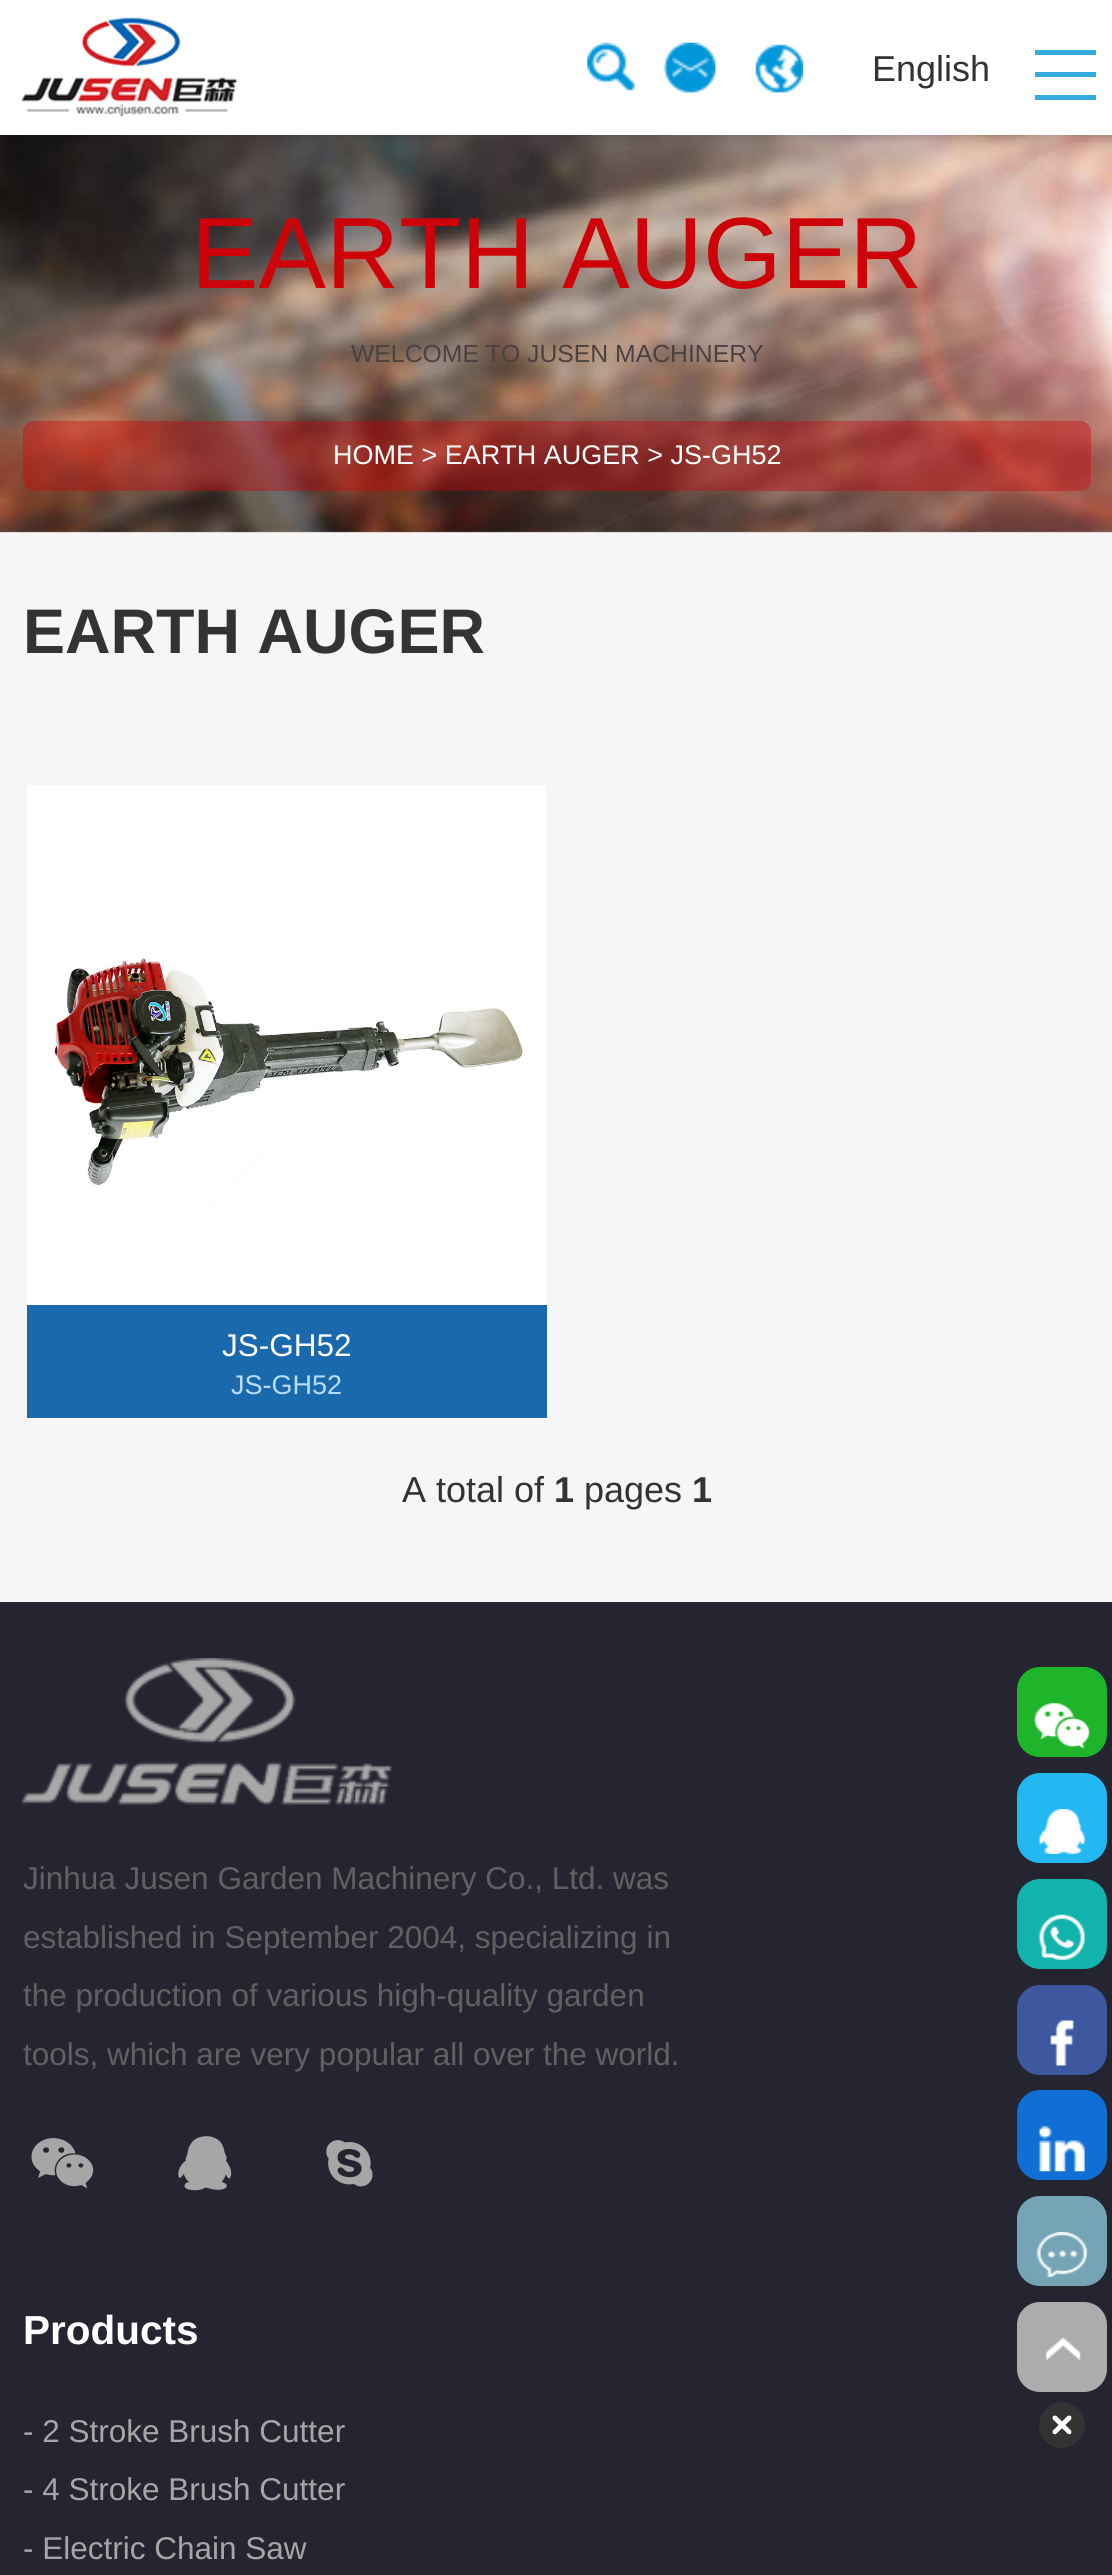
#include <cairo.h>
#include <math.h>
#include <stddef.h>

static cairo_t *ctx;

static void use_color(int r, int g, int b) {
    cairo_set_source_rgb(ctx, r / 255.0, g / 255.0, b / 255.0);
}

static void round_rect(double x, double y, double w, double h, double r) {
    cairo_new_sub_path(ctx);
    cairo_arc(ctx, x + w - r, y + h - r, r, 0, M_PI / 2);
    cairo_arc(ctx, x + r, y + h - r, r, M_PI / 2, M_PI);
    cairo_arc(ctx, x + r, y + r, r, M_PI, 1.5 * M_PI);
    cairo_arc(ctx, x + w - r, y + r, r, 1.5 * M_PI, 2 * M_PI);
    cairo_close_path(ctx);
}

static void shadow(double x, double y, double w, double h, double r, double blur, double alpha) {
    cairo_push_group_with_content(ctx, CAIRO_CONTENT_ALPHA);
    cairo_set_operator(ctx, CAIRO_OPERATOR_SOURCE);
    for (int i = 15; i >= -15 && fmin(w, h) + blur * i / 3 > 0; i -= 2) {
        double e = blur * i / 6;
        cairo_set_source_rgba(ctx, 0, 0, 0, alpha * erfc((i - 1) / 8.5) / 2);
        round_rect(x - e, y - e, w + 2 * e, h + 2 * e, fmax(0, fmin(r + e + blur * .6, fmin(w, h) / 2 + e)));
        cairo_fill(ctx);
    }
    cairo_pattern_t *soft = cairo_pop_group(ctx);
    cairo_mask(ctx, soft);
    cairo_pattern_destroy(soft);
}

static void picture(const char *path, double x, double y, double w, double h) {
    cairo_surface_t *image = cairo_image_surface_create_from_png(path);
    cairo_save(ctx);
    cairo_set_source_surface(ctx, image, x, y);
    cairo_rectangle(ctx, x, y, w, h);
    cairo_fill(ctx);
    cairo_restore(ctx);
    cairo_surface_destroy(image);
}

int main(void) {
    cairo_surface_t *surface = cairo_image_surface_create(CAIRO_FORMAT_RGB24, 1112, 2575);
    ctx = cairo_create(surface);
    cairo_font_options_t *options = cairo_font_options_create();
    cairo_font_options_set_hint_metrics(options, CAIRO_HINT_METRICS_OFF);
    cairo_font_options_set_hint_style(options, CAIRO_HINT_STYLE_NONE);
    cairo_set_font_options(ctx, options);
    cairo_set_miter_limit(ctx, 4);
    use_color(255, 255, 255);
    cairo_paint(ctx);
    picture("img5.png", 0, 135, 1112, 398);
    use_color(0, 0, 0);
    shadow(0, 2, 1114, 135, 0, 5.5, 0.18);
    use_color(255, 255, 255);
    cairo_rectangle(ctx, 0, 0, 1112, 135);
    cairo_fill(ctx);
    picture("img1.png", 21, 17, 217, 100);
    picture("img2.png", 587, 42, 49, 49);
    picture("img3.png", 663, 42, 54, 51);
    picture("img4.png", 755, 44, 48, 49);
    cairo_select_font_face(ctx, "Liberation Sans", CAIRO_FONT_SLANT_NORMAL, CAIRO_FONT_WEIGHT_NORMAL);
    cairo_set_font_size(ctx, 36);
    use_color(51, 51, 51);
    cairo_move_to(ctx, 872, 81);
    cairo_show_text(ctx, "English");
    use_color(51, 171, 225);
    cairo_rectangle(ctx, 1035, 50, 61, 5);
    cairo_fill(ctx);
    cairo_rectangle(ctx, 1035, 72, 61, 5);
    cairo_fill(ctx);
    cairo_rectangle(ctx, 1035, 95, 61, 5);
    cairo_fill(ctx);
    cairo_set_font_size(ctx, 101.25);
    use_color(205, 3, 9);
    cairo_move_to(ctx, 191, 288);
    cairo_show_text(ctx, "EARTH AUGER");
    cairo_set_font_size(ctx, 24.75);
    use_color(76, 64, 64);
    cairo_move_to(ctx, 351, 362);
    cairo_show_text(ctx, "WELCOME TO JUSEN MACHINERY");
    cairo_set_source_rgba(ctx, 0.804, 0.012, 0.035, 0.4);
    round_rect(23, 421, 1068, 70, 11);
    cairo_fill(ctx);
    cairo_set_font_size(ctx, 27);
    use_color(255, 255, 255);
    cairo_move_to(ctx, 333, 464);
    cairo_show_text(ctx, "HOME > EARTH AUGER > JS-GH52");
    use_color(246, 246, 246);
    cairo_rectangle(ctx, 0, 533, 1112, 1069);
    cairo_fill(ctx);
    cairo_select_font_face(ctx, "Liberation Sans", CAIRO_FONT_SLANT_NORMAL, CAIRO_FONT_WEIGHT_BOLD);
    cairo_set_font_size(ctx, 63);
    use_color(51, 51, 51);
    cairo_move_to(ctx, 23, 653);
    cairo_show_text(ctx, "EARTH AUGER");
    picture("img6.png", 27, 785, 520, 520);
    use_color(27, 105, 173);
    cairo_rectangle(ctx, 27, 1305, 520, 113);
    cairo_fill(ctx);
    cairo_select_font_face(ctx, "Liberation Sans", CAIRO_FONT_SLANT_NORMAL, CAIRO_FONT_WEIGHT_NORMAL);
    cairo_set_font_size(ctx, 31.5);
    use_color(255, 255, 255);
    cairo_move_to(ctx, 222, 1356);
    cairo_show_text(ctx, "JS-GH52");
    cairo_set_font_size(ctx, 27);
    use_color(185, 221, 252);
    cairo_move_to(ctx, 231, 1394);
    cairo_show_text(ctx, "JS-GH52");
    cairo_set_font_size(ctx, 36);
    use_color(51, 51, 51);
    cairo_move_to(ctx, 402, 1502);
    cairo_show_text(ctx, "A total of");
    cairo_select_font_face(ctx, "Liberation Sans", CAIRO_FONT_SLANT_NORMAL, CAIRO_FONT_WEIGHT_BOLD);
    cairo_move_to(ctx, 554, 1502);
    cairo_show_text(ctx, "1");
    cairo_select_font_face(ctx, "Liberation Sans", CAIRO_FONT_SLANT_NORMAL, CAIRO_FONT_WEIGHT_NORMAL);
    cairo_move_to(ctx, 584, 1502);
    cairo_show_text(ctx, "pages");
    cairo_select_font_face(ctx, "Liberation Sans", CAIRO_FONT_SLANT_NORMAL, CAIRO_FONT_WEIGHT_BOLD);
    cairo_move_to(ctx, 692, 1502);
    cairo_show_text(ctx, "1");
    use_color(37, 37, 49);
    cairo_rectangle(ctx, 0, 1602, 1112, 973);
    cairo_fill(ctx);
    picture("img7.png", 22, 1658, 370, 147);
    cairo_select_font_face(ctx, "Liberation Sans", CAIRO_FONT_SLANT_NORMAL, CAIRO_FONT_WEIGHT_NORMAL);
    cairo_set_font_size(ctx, 31.5);
    use_color(97, 97, 97);
    cairo_move_to(ctx, 23, 1889);
    cairo_show_text(ctx, "Jinhua Jusen Garden Machinery Co., Ltd. was");
    cairo_move_to(ctx, 23, 1948);
    cairo_show_text(ctx, "established in September 2004, specializing in");
    cairo_move_to(ctx, 23, 2006);
    cairo_show_text(ctx, "the production of various high-quality garden");
    cairo_move_to(ctx, 23, 2065);
    cairo_show_text(ctx, "tools, which are very popular all over the world.");
    picture("img8.png", 31, 2138, 63, 51);
    picture("img9.png", 178, 2136, 54, 55);
    picture("img10.png", 326, 2140, 47, 47);
    cairo_select_font_face(ctx, "Liberation Sans", CAIRO_FONT_SLANT_NORMAL, CAIRO_FONT_WEIGHT_BOLD);
    cairo_set_font_size(ctx, 40.5);
    use_color(255, 255, 255);
    cairo_move_to(ctx, 23, 2344);
    cairo_show_text(ctx, "Products");
    cairo_select_font_face(ctx, "Liberation Sans", CAIRO_FONT_SLANT_NORMAL, CAIRO_FONT_WEIGHT_NORMAL);
    cairo_set_font_size(ctx, 31.5);
    use_color(166, 166, 166);
    cairo_move_to(ctx, 23, 2442);
    cairo_show_text(ctx, "- 2 Stroke Brush Cutter");
    cairo_move_to(ctx, 23, 2500);
    cairo_show_text(ctx, "- 4 Stroke Brush Cutter");
    cairo_move_to(ctx, 23, 2559);
    cairo_show_text(ctx, "- Electric Chain Saw");
    use_color(31, 181, 42);
    round_rect(1017, 1667, 90, 90, 23);
    cairo_fill(ctx);
    picture("img11.png", 1034, 1703, 56, 46);
    use_color(36, 184, 242);
    round_rect(1017, 1773, 90, 90, 23);
    cairo_fill(ctx);
    picture("img12.png", 1038, 1809, 47, 45);
    use_color(18, 179, 173);
    round_rect(1017, 1879, 90, 90, 23);
    cairo_fill(ctx);
    picture("img13.png", 1038, 1914, 47, 46);
    use_color(61, 88, 158);
    round_rect(1017, 1985, 90, 90, 23);
    cairo_fill(ctx);
    picture("img14.png", 1050, 2020, 24, 46);
    use_color(16, 111, 212);
    round_rect(1017, 2090, 90, 90, 23);
    cairo_fill(ctx);
    picture("img15.png", 1038, 2126, 47, 46);
    use_color(118, 164, 183);
    round_rect(1017, 2196, 90, 90, 23);
    cairo_fill(ctx);
    picture("img16.png", 1036, 2232, 51, 45);
    use_color(172, 172, 172);
    round_rect(1017, 2302, 90, 90, 23);
    cairo_fill(ctx);
    picture("img17.png", 1045, 2337, 36, 24);
    use_color(51, 51, 51);
    cairo_new_path(ctx);
    cairo_move_to(ctx, 1078, 2409);
    cairo_curve_to(ctx, 1099, 2430, 1067, 2462, 1046, 2441);
    cairo_curve_to(ctx, 1025, 2420, 1057, 2388, 1078, 2409);
    cairo_close_path(ctx);
    cairo_fill(ctx);
    cairo_new_path(ctx);
    cairo_move_to(ctx, 1076.5, 2410.5);
    cairo_curve_to(ctx, 1095, 2429.5, 1066.5, 2458, 1047.5, 2439.5);
    cairo_curve_to(ctx, 1029, 2420.5, 1057.5, 2392, 1076.5, 2410.5);
    cairo_close_path(ctx);
    cairo_set_line_width(ctx, 4.5);
    cairo_stroke(ctx);
    use_color(255, 255, 255);
    cairo_new_path(ctx);
    cairo_move_to(ctx, 1056.5, 2416);
    cairo_line_to(ctx, 1071, 2430.5);
    cairo_curve_to(ctx, 1071.5, 2431.5, 1071.5, 2433, 1071, 2433.5);
    cairo_curve_to(ctx, 1070, 2434.5, 1068.5, 2434.5, 1067.5, 2433.5);
    cairo_line_to(ctx, 1053, 2419.5);
    cairo_curve_to(ctx, 1052.5, 2418.5, 1052.5, 2417, 1053, 2416);
    cairo_curve_to(ctx, 1054, 2415.5, 1055.5, 2415.5, 1056.5, 2416);
    cairo_close_path(ctx);
    cairo_fill(ctx);
    cairo_new_path(ctx);
    cairo_move_to(ctx, 1071, 2416);
    cairo_curve_to(ctx, 1071.5, 2417, 1071.5, 2418.5, 1071, 2419.5);
    cairo_line_to(ctx, 1056.5, 2433.5);
    cairo_curve_to(ctx, 1055.5, 2434.5, 1054, 2434.5, 1053, 2433.5);
    cairo_curve_to(ctx, 1052.5, 2433, 1052.5, 2431.5, 1053, 2430.5);
    cairo_line_to(ctx, 1067.5, 2416);
    cairo_curve_to(ctx, 1068.5, 2415.5, 1070, 2415.5, 1071, 2416);
    cairo_close_path(ctx);
    cairo_fill(ctx);
    cairo_surface_write_to_png(surface, "result.png");
    cairo_font_options_destroy(options);
    cairo_destroy(ctx);
    cairo_surface_destroy(surface);
    return 0;
}
